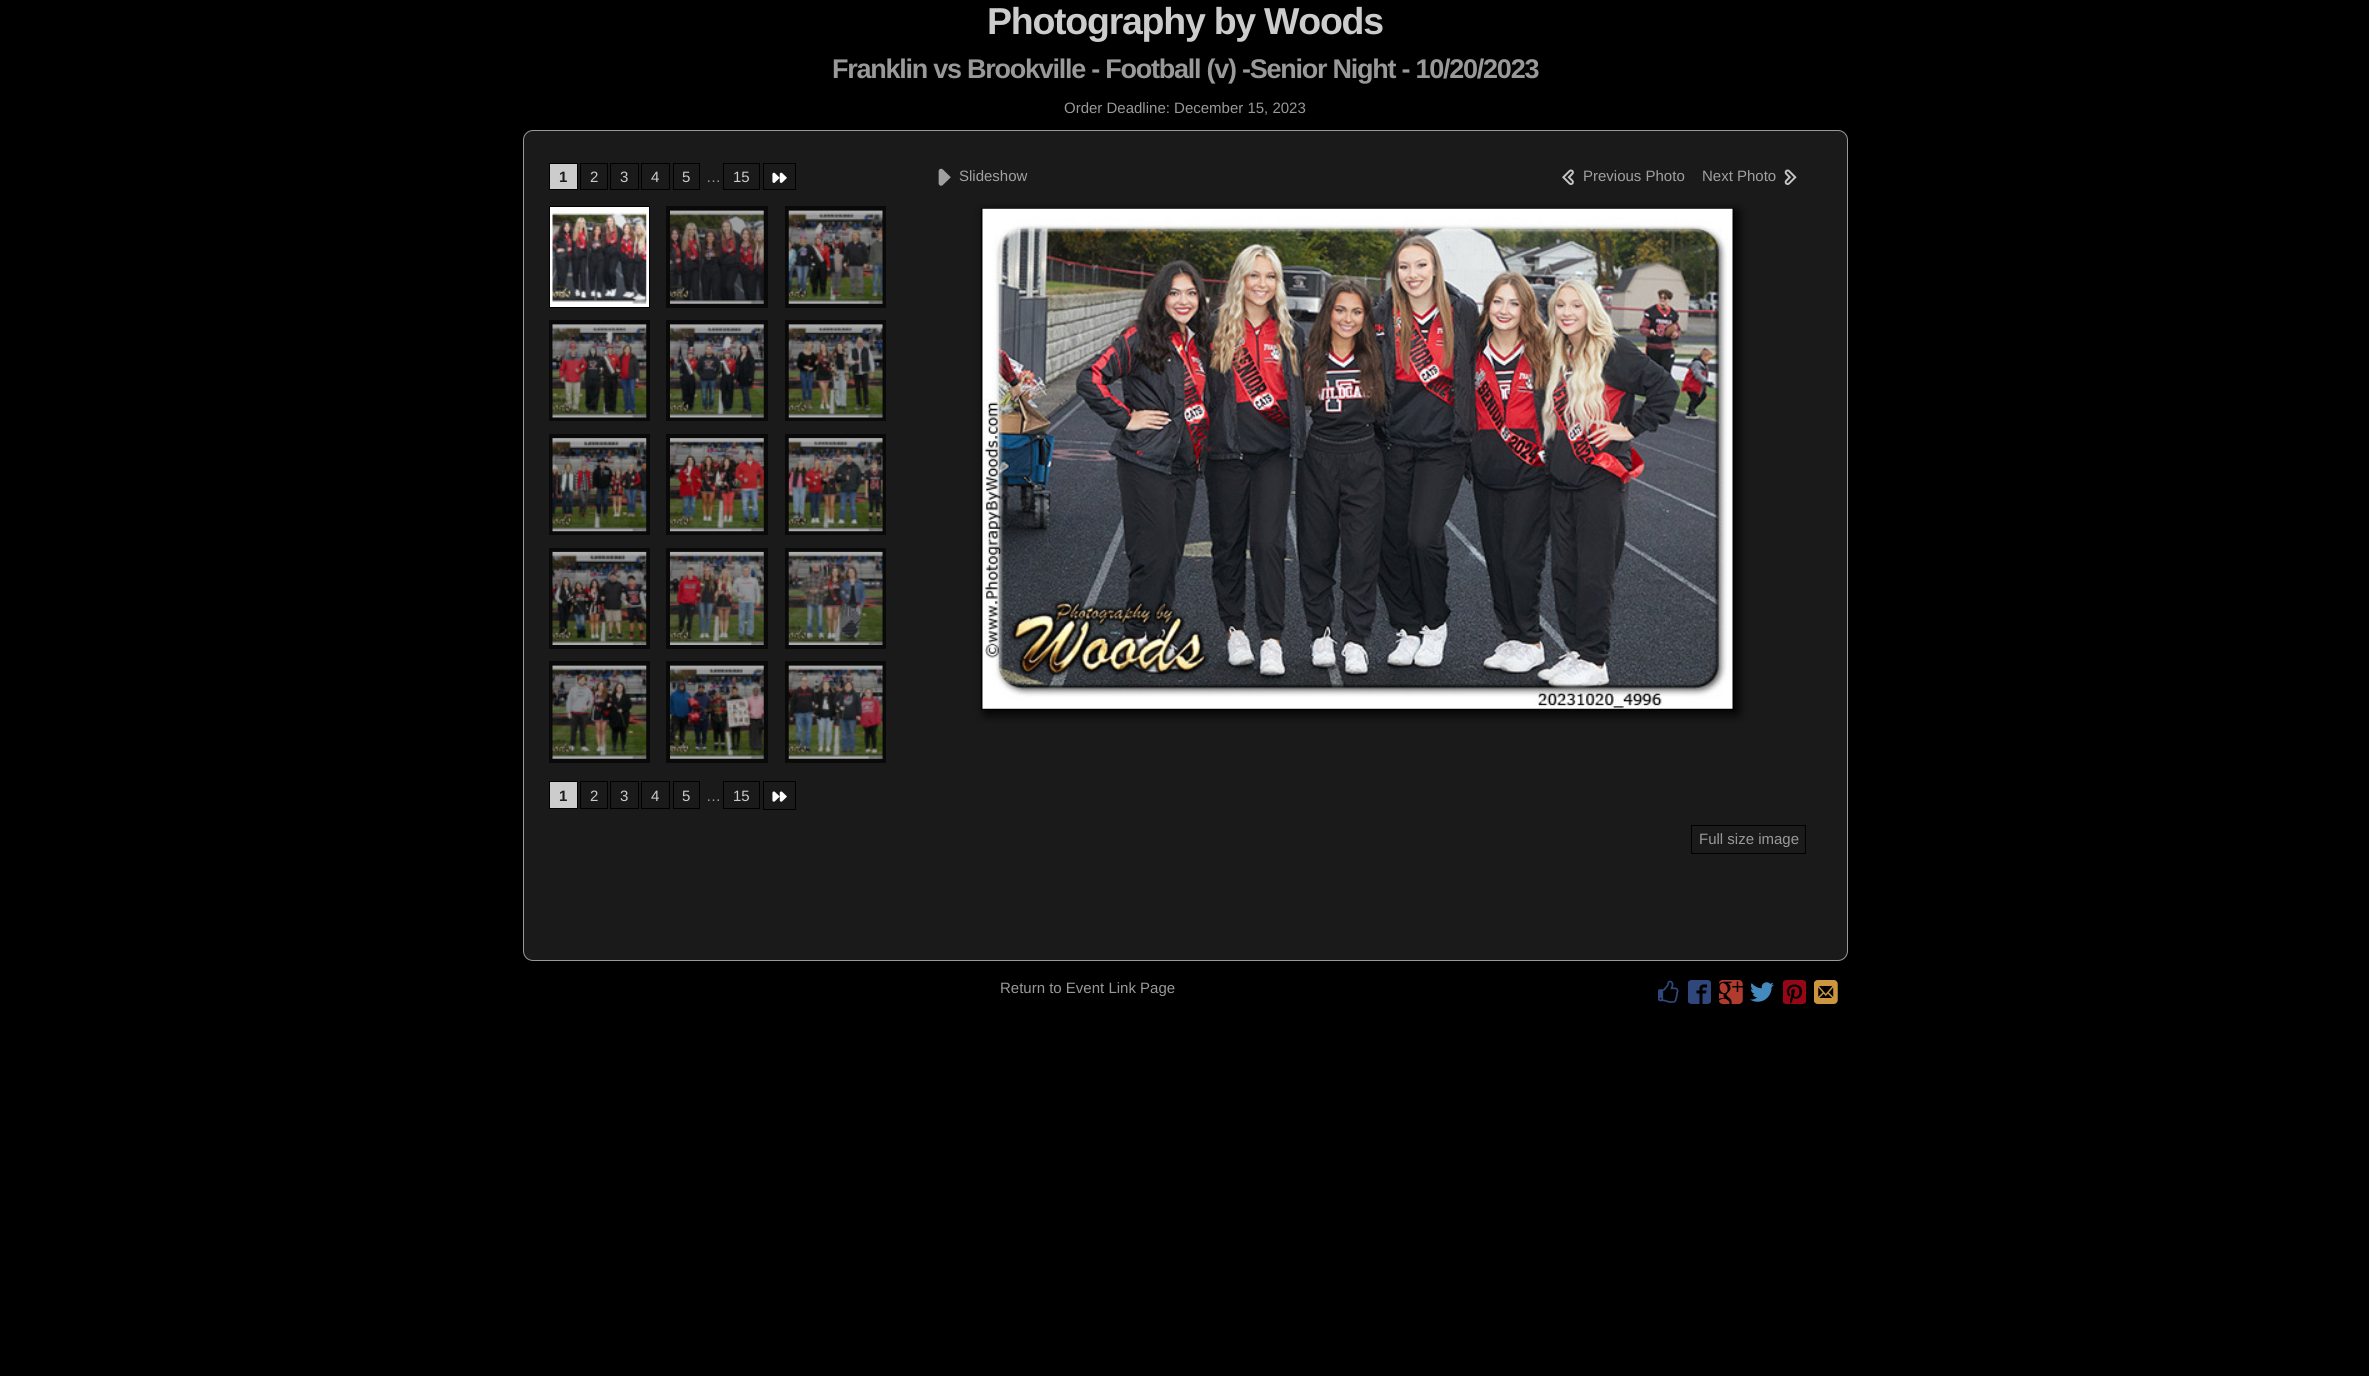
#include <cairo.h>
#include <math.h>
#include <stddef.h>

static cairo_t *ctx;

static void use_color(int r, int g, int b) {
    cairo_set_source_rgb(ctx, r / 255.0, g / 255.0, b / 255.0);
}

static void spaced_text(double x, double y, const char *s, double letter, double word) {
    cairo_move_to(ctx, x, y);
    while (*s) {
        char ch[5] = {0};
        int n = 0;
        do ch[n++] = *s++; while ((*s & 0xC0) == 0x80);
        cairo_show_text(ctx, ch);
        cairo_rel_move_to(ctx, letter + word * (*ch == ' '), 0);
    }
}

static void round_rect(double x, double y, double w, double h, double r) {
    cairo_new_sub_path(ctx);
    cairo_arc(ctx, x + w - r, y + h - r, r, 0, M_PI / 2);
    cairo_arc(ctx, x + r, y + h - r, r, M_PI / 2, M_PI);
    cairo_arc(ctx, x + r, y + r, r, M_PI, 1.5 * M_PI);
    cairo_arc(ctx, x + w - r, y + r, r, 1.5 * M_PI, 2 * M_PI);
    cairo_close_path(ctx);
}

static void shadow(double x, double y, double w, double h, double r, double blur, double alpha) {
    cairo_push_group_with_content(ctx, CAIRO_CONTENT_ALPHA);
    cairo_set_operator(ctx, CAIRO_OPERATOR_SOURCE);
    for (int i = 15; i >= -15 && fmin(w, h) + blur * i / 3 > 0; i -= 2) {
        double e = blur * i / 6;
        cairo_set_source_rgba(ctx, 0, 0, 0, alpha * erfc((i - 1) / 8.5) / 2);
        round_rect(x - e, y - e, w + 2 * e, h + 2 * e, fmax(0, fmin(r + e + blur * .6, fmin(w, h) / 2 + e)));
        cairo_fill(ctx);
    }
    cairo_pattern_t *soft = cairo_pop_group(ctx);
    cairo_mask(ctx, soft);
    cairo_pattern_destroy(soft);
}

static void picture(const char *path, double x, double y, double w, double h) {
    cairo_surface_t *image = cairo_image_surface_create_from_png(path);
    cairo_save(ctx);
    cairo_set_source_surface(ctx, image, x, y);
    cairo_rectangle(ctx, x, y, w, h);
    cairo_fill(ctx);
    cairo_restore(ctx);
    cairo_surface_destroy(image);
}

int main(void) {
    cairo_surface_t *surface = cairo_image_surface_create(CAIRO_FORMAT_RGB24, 2369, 1376);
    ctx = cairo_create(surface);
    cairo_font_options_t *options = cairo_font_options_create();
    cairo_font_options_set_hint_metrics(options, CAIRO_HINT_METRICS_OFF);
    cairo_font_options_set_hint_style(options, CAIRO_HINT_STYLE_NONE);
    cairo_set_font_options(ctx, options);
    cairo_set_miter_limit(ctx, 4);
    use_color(0, 0, 0);
    cairo_paint(ctx);
    cairo_select_font_face(ctx, "Liberation Sans", CAIRO_FONT_SLANT_NORMAL, CAIRO_FONT_WEIGHT_BOLD);
    cairo_set_font_size(ctx, 37.5);
    use_color(204, 204, 204);
    spaced_text(987, 34, "Photography by Woods", -1.25, 0);
    cairo_set_font_size(ctx, 27);
    use_color(153, 153, 153);
    spaced_text(832, 78, "Franklin vs Brookville - Football (v) -Senior Night - 10/20/2023", -1.25, 0);
    cairo_select_font_face(ctx, "Liberation Sans", CAIRO_FONT_SLANT_NORMAL, CAIRO_FONT_WEIGHT_NORMAL);
    cairo_set_font_size(ctx, 15);
    cairo_move_to(ctx, 1064, 113);
    cairo_show_text(ctx, "Order Deadline: December 15, 2023");
    use_color(26, 26, 26);
    round_rect(523.5, 130.5, 1324, 830, 9.5);
    cairo_fill_preserve(ctx);
    use_color(153, 153, 153);
    cairo_set_line_width(ctx, 1);
    cairo_stroke(ctx);
    use_color(204, 204, 204);
    cairo_rectangle(ctx, 549.5, 163.5, 28, 26);
    cairo_fill_preserve(ctx);
    use_color(0, 0, 0);
    cairo_stroke(ctx);
    cairo_select_font_face(ctx, "Liberation Sans", CAIRO_FONT_SLANT_NORMAL, CAIRO_FONT_WEIGHT_BOLD);
    use_color(26, 26, 26);
    cairo_move_to(ctx, 559, 182);
    cairo_show_text(ctx, "1");
    cairo_rectangle(ctx, 580.5, 163.5, 27, 26);
    use_color(0, 0, 0);
    cairo_stroke(ctx);
    cairo_select_font_face(ctx, "Liberation Sans", CAIRO_FONT_SLANT_NORMAL, CAIRO_FONT_WEIGHT_NORMAL);
    use_color(204, 204, 204);
    cairo_move_to(ctx, 590, 182);
    cairo_show_text(ctx, "2");
    cairo_rectangle(ctx, 610.5, 163.5, 28, 26);
    use_color(0, 0, 0);
    cairo_stroke(ctx);
    use_color(204, 204, 204);
    cairo_move_to(ctx, 620, 182);
    cairo_show_text(ctx, "3");
    cairo_rectangle(ctx, 641.5, 163.5, 28, 26);
    use_color(0, 0, 0);
    cairo_stroke(ctx);
    use_color(204, 204, 204);
    cairo_move_to(ctx, 651, 182);
    cairo_show_text(ctx, "4");
    cairo_rectangle(ctx, 673.5, 163.5, 26, 26);
    use_color(0, 0, 0);
    cairo_stroke(ctx);
    use_color(204, 204, 204);
    cairo_move_to(ctx, 682, 182);
    cairo_show_text(ctx, "5");
    use_color(153, 153, 153);
    cairo_move_to(ctx, 706, 182);
    cairo_show_text(ctx, "…");
    cairo_rectangle(ctx, 723.5, 163.5, 36, 26);
    use_color(0, 0, 0);
    cairo_stroke(ctx);
    use_color(204, 204, 204);
    cairo_move_to(ctx, 733, 182);
    cairo_show_text(ctx, "15");
    cairo_rectangle(ctx, 763.5, 163.5, 32, 26);
    use_color(0, 0, 0);
    cairo_stroke(ctx);
    picture("img1.png", 772, 172, 15, 11);
    use_color(255, 255, 255);
    cairo_rectangle(ctx, 549.5, 206.5, 100, 101);
    cairo_fill_preserve(ctx);
    use_color(0, 0, 0);
    cairo_stroke(ctx);
    picture("img2.png", 552, 211, 95, 93);
    use_color(9, 9, 9);
    cairo_rectangle(ctx, 666, 206, 102, 102);
    cairo_fill(ctx);
    picture("img3.png", 670, 210, 94, 94);
    cairo_rectangle(ctx, 785, 206, 101, 102);
    cairo_fill(ctx);
    picture("img4.png", 788, 210, 95, 94);
    cairo_rectangle(ctx, 549, 320, 101, 101);
    cairo_fill(ctx);
    picture("img5.png", 552, 324, 95, 94);
    cairo_rectangle(ctx, 666, 320, 102, 101);
    cairo_fill(ctx);
    picture("img6.png", 670, 324, 94, 94);
    cairo_rectangle(ctx, 785, 320, 101, 101);
    cairo_fill(ctx);
    picture("img7.png", 788, 324, 95, 94);
    cairo_rectangle(ctx, 549, 434, 101, 101);
    cairo_fill(ctx);
    picture("img8.png", 552, 438, 95, 94);
    cairo_rectangle(ctx, 666, 434, 102, 101);
    cairo_fill(ctx);
    picture("img9.png", 670, 438, 94, 94);
    cairo_rectangle(ctx, 785, 434, 101, 101);
    cairo_fill(ctx);
    picture("img10.png", 788, 438, 95, 94);
    cairo_rectangle(ctx, 549, 548, 101, 101);
    cairo_fill(ctx);
    picture("img11.png", 552, 551, 95, 94);
    cairo_rectangle(ctx, 666, 548, 102, 101);
    cairo_fill(ctx);
    picture("img12.png", 670, 551, 94, 94);
    cairo_rectangle(ctx, 785, 548, 101, 101);
    cairo_fill(ctx);
    picture("img13.png", 788, 551, 95, 94);
    cairo_rectangle(ctx, 549, 661, 101, 102);
    cairo_fill(ctx);
    picture("img14.png", 552, 665, 95, 94);
    cairo_rectangle(ctx, 666, 661, 102, 102);
    cairo_fill(ctx);
    picture("img15.png", 670, 665, 94, 94);
    cairo_rectangle(ctx, 785, 661, 101, 102);
    cairo_fill(ctx);
    picture("img16.png", 788, 665, 95, 94);
    use_color(204, 204, 204);
    cairo_rectangle(ctx, 549.5, 781.5, 28, 27);
    cairo_fill_preserve(ctx);
    use_color(0, 0, 0);
    cairo_stroke(ctx);
    cairo_select_font_face(ctx, "Liberation Sans", CAIRO_FONT_SLANT_NORMAL, CAIRO_FONT_WEIGHT_BOLD);
    use_color(26, 26, 26);
    cairo_move_to(ctx, 559, 801);
    cairo_show_text(ctx, "1");
    cairo_rectangle(ctx, 580.5, 781.5, 27, 27);
    use_color(0, 0, 0);
    cairo_stroke(ctx);
    cairo_select_font_face(ctx, "Liberation Sans", CAIRO_FONT_SLANT_NORMAL, CAIRO_FONT_WEIGHT_NORMAL);
    use_color(204, 204, 204);
    cairo_move_to(ctx, 590, 801);
    cairo_show_text(ctx, "2");
    cairo_rectangle(ctx, 610.5, 781.5, 28, 27);
    use_color(0, 0, 0);
    cairo_stroke(ctx);
    use_color(204, 204, 204);
    cairo_move_to(ctx, 620, 801);
    cairo_show_text(ctx, "3");
    cairo_rectangle(ctx, 641.5, 781.5, 28, 27);
    use_color(0, 0, 0);
    cairo_stroke(ctx);
    use_color(204, 204, 204);
    cairo_move_to(ctx, 651, 801);
    cairo_show_text(ctx, "4");
    cairo_rectangle(ctx, 673.5, 781.5, 26, 27);
    use_color(0, 0, 0);
    cairo_stroke(ctx);
    use_color(204, 204, 204);
    cairo_move_to(ctx, 682, 801);
    cairo_show_text(ctx, "5");
    use_color(153, 153, 153);
    cairo_move_to(ctx, 706, 801);
    cairo_show_text(ctx, "…");
    cairo_rectangle(ctx, 723.5, 781.5, 36, 27);
    use_color(0, 0, 0);
    cairo_stroke(ctx);
    use_color(204, 204, 204);
    cairo_move_to(ctx, 733, 801);
    cairo_show_text(ctx, "15");
    cairo_rectangle(ctx, 763.5, 781.5, 32, 28);
    use_color(0, 0, 0);
    cairo_stroke(ctx);
    picture("img17.png", 772, 791, 15, 11);
    picture("img18.png", 938, 168, 13, 18);
    use_color(160, 160, 160);
    cairo_move_to(ctx, 959, 181);
    cairo_show_text(ctx, "Slideshow");
    picture("img19.png", 1562, 169, 12, 16);
    cairo_move_to(ctx, 1583, 181);
    cairo_show_text(ctx, "Previous Photo");
    cairo_move_to(ctx, 1702, 181);
    cairo_show_text(ctx, "Next Photo");
    picture("img20.png", 1784, 169, 13, 16);
    cairo_save(ctx);
    cairo_rectangle(ctx, 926, 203, 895, 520);
    cairo_clip(ctx);
    use_color(0, 0, 0);
    shadow(985, 211, 753, 503, 0, 5.5, 1);
    cairo_restore(ctx);
    cairo_rectangle(ctx, 981.5, 208.5, 752, 501);
    use_color(0, 0, 0);
    cairo_stroke(ctx);
    picture("img21.png", 982, 208, 751, 501);
    cairo_rectangle(ctx, 1691.5, 825.5, 114, 28);
    cairo_stroke(ctx);
    use_color(153, 153, 153);
    cairo_move_to(ctx, 1699, 844);
    cairo_show_text(ctx, "Full size image");
    cairo_move_to(ctx, 1000, 993);
    cairo_show_text(ctx, "Return to Event Link Page");
    picture("img22.png", 1658, 980, 21, 23);
    picture("img23.png", 1688, 980, 23, 24);
    picture("img24.png", 1719, 980, 24, 24);
    picture("img25.png", 1750, 982, 24, 20);
    picture("img26.png", 1783, 980, 23, 24);
    picture("img27.png", 1814, 980, 24, 24);
    cairo_surface_write_to_png(surface, "result.png");
    cairo_font_options_destroy(options);
    cairo_destroy(ctx);
    cairo_surface_destroy(surface);
    return 0;
}
